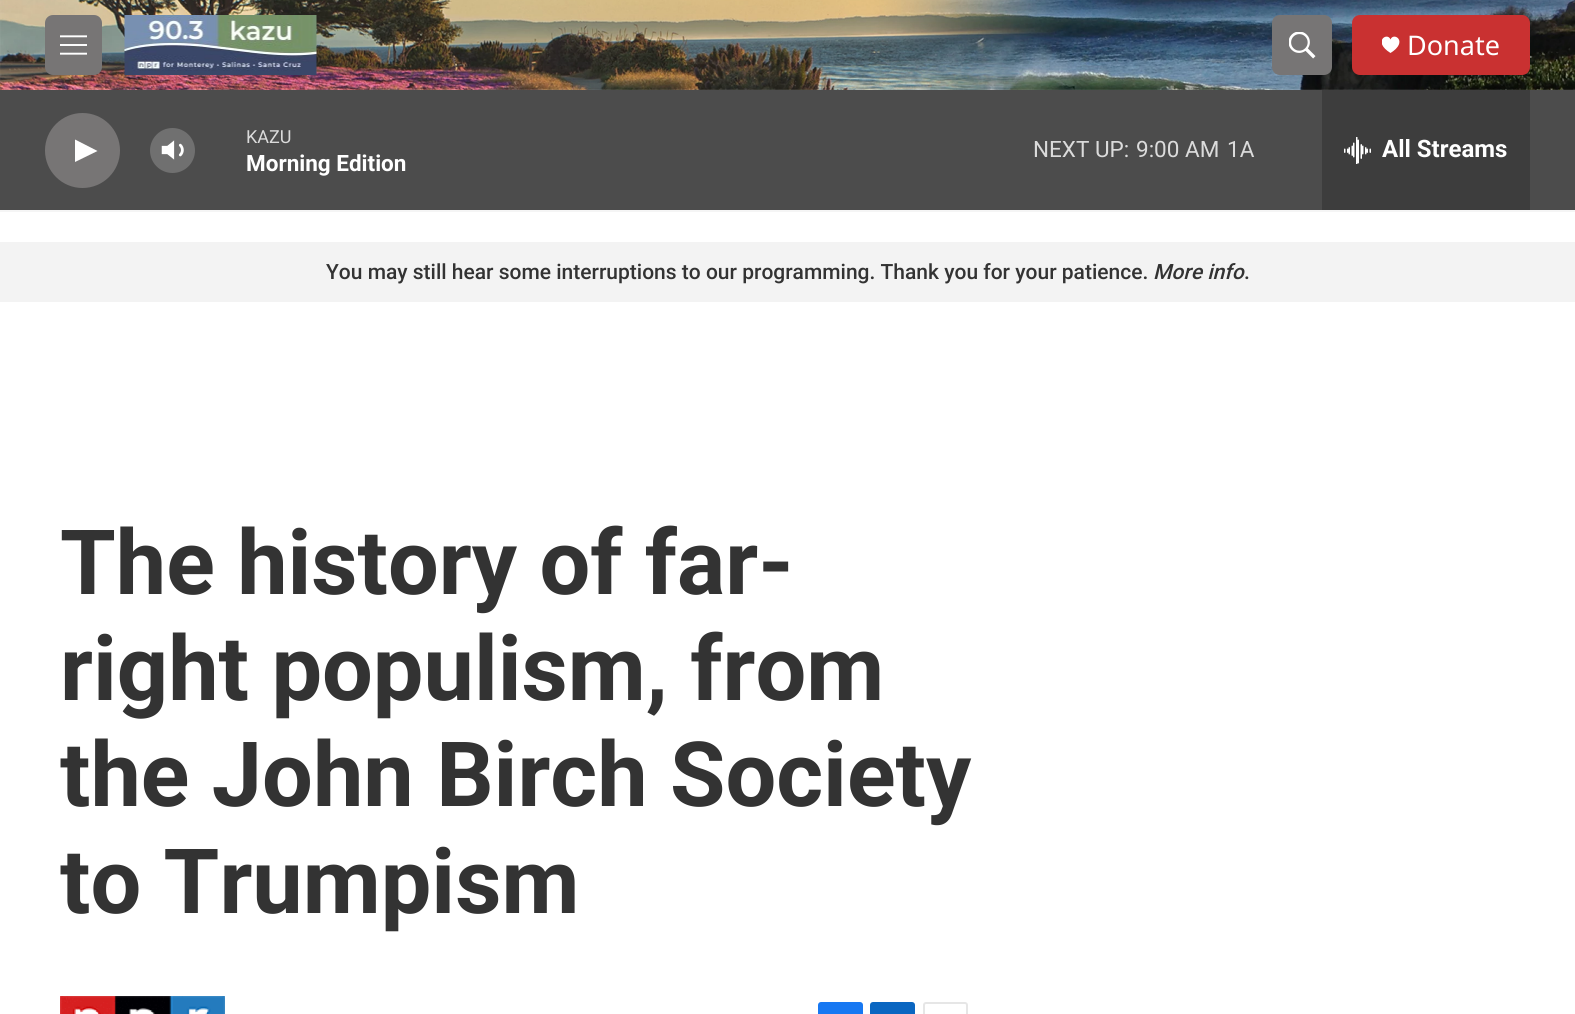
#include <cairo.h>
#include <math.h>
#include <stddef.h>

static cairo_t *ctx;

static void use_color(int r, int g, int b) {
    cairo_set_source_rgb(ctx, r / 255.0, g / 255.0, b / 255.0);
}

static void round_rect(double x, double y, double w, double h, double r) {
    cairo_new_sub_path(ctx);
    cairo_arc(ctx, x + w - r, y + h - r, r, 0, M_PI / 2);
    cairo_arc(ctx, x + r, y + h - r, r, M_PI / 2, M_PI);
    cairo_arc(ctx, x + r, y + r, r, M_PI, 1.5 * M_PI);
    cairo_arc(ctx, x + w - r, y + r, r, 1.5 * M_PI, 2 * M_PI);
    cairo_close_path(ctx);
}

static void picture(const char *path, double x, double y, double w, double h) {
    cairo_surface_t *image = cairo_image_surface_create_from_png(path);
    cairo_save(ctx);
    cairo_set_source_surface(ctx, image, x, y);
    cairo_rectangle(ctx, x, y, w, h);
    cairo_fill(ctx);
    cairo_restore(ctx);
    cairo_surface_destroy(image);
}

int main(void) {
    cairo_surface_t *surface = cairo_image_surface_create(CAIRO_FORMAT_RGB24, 1575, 1014);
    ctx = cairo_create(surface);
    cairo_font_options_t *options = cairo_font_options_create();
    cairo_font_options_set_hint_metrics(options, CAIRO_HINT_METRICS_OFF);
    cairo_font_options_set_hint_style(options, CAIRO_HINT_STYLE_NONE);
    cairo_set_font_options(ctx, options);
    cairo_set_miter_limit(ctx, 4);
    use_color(255, 255, 255);
    cairo_paint(ctx);
    use_color(245, 245, 245);
    cairo_rectangle(ctx, 0, 210, 1575, 2);
    cairo_fill(ctx);
    picture("img1.png", 0, 0, 1575, 90);
    use_color(119, 117, 117);
    round_rect(45, 15, 57, 60, 8);
    cairo_fill(ctx);
    picture("img2.png", 60, 35, 27, 20);
    picture("img3.png", 124, 15, 193, 60);
    round_rect(1272, 15, 60, 60, 8);
    cairo_fill(ctx);
    picture("img4.png", 1289, 32, 27, 27);
    use_color(201, 49, 49);
    round_rect(1352, 15, 178, 60, 8);
    cairo_fill(ctx);
    cairo_save(ctx);
    cairo_rectangle(ctx, 1382, 36, 18, 18);
    cairo_clip(ctx);
    use_color(255, 255, 255);
    cairo_new_path(ctx);
    cairo_move_to(ctx, 1390.5, 39.5);
    cairo_curve_to(ctx, 1387.5, 31.5, 1372, 41.5, 1390.5, 53);
    cairo_curve_to(ctx, 1409, 41.5, 1393.5, 31.5, 1390.5, 39.5);
    cairo_close_path(ctx);
    cairo_fill(ctx);
    cairo_restore(ctx);
    cairo_select_font_face(ctx, "Noto Sans", CAIRO_FONT_SLANT_NORMAL, CAIRO_FONT_WEIGHT_NORMAL);
    cairo_set_font_size(ctx, 27);
    use_color(255, 255, 255);
    cairo_move_to(ctx, 1407, 55);
    cairo_show_text(ctx, "Donate");
    use_color(76, 76, 76);
    cairo_rectangle(ctx, 0, 90, 1575, 120);
    cairo_fill(ctx);
    use_color(119, 117, 117);
    cairo_arc(ctx, 82.5, 150.5, 37.5, 0, 2 * M_PI);
    cairo_fill(ctx);
    use_color(255, 255, 255);
    cairo_new_path(ctx);
    cairo_move_to(ctx, 75, 139.5);
    cairo_line_to(ctx, 97.5, 151);
    cairo_line_to(ctx, 75, 162);
    cairo_close_path(ctx);
    cairo_fill(ctx);
    picture("img5.png", 161, 140, 23, 20);
    cairo_set_source_rgba(ctx, 1, 1, 1, 0.2);
    cairo_arc(ctx, 172.5, 150.5, 22.5, 0, 2 * M_PI);
    cairo_fill(ctx);
    cairo_select_font_face(ctx, "Roboto", CAIRO_FONT_SLANT_NORMAL, CAIRO_FONT_WEIGHT_NORMAL);
    cairo_set_font_size(ctx, 18);
    use_color(219, 219, 219);
    cairo_move_to(ctx, 246, 143);
    cairo_show_text(ctx, "KAZU");
    cairo_select_font_face(ctx, "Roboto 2", CAIRO_FONT_SLANT_NORMAL, CAIRO_FONT_WEIGHT_BOLD);
    cairo_set_font_size(ctx, 22.5);
    use_color(255, 255, 255);
    cairo_move_to(ctx, 246, 171);
    cairo_show_text(ctx, "Morning Edition");
    cairo_select_font_face(ctx, "Roboto", CAIRO_FONT_SLANT_NORMAL, CAIRO_FONT_WEIGHT_NORMAL);
    use_color(219, 219, 219);
    cairo_move_to(ctx, 1033, 157);
    cairo_show_text(ctx, "NEXT UP:");
    cairo_move_to(ctx, 1136, 157);
    cairo_show_text(ctx, "9:00 AM");
    cairo_move_to(ctx, 1227, 157);
    cairo_show_text(ctx, "1A");
    use_color(61, 61, 61);
    cairo_rectangle(ctx, 1322, 90, 208, 120);
    cairo_fill(ctx);
    picture("img6.png", 1344, 137, 27, 27);
    cairo_select_font_face(ctx, "Roboto 2", CAIRO_FONT_SLANT_NORMAL, CAIRO_FONT_WEIGHT_BOLD);
    cairo_set_font_size(ctx, 24);
    use_color(255, 255, 255);
    cairo_move_to(ctx, 1382, 157);
    cairo_show_text(ctx, "All Streams");
    use_color(243, 243, 243);
    cairo_rectangle(ctx, 0, 242, 1575, 60);
    cairo_fill(ctx);
    cairo_select_font_face(ctx, "Roboto Medium", CAIRO_FONT_SLANT_NORMAL, CAIRO_FONT_WEIGHT_NORMAL);
    cairo_set_font_size(ctx, 21);
    use_color(51, 51, 51);
    cairo_move_to(ctx, 326, 279);
    cairo_show_text(ctx, "You may still hear some interruptions to our programming. Thank you for your patience.");
    cairo_select_font_face(ctx, "Roboto Medium", CAIRO_FONT_SLANT_ITALIC, CAIRO_FONT_WEIGHT_NORMAL);
    cairo_move_to(ctx, 1153, 279);
    cairo_show_text(ctx, "More info");
    cairo_select_font_face(ctx, "Roboto Medium", CAIRO_FONT_SLANT_NORMAL, CAIRO_FONT_WEIGHT_NORMAL);
    cairo_move_to(ctx, 1244, 279);
    cairo_show_text(ctx, ".");
    cairo_select_font_face(ctx, "Roboto", CAIRO_FONT_SLANT_NORMAL, CAIRO_FONT_WEIGHT_BOLD);
    cairo_set_font_size(ctx, 90);
    cairo_move_to(ctx, 60, 594);
    cairo_show_text(ctx, "The history of far-");
    cairo_move_to(ctx, 60, 700);
    cairo_show_text(ctx, "right populism, from");
    cairo_move_to(ctx, 60, 806);
    cairo_show_text(ctx, "the John Birch Society");
    cairo_move_to(ctx, 60, 913);
    cairo_show_text(ctx, "to Trumpism");
    picture("img7.png", 60, 996, 165, 18);
    use_color(23, 120, 242);
    round_rect(818, 1002, 45, 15, 3);
    cairo_fill(ctx);
    use_color(10, 102, 193);
    round_rect(870, 1002, 45, 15, 3);
    cairo_fill(ctx);
    round_rect(924, 1003, 43, 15, 2);
    use_color(230, 230, 230);
    cairo_stroke(ctx);
    cairo_surface_write_to_png(surface, "result.png");
    cairo_font_options_destroy(options);
    cairo_destroy(ctx);
    cairo_surface_destroy(surface);
    return 0;
}
